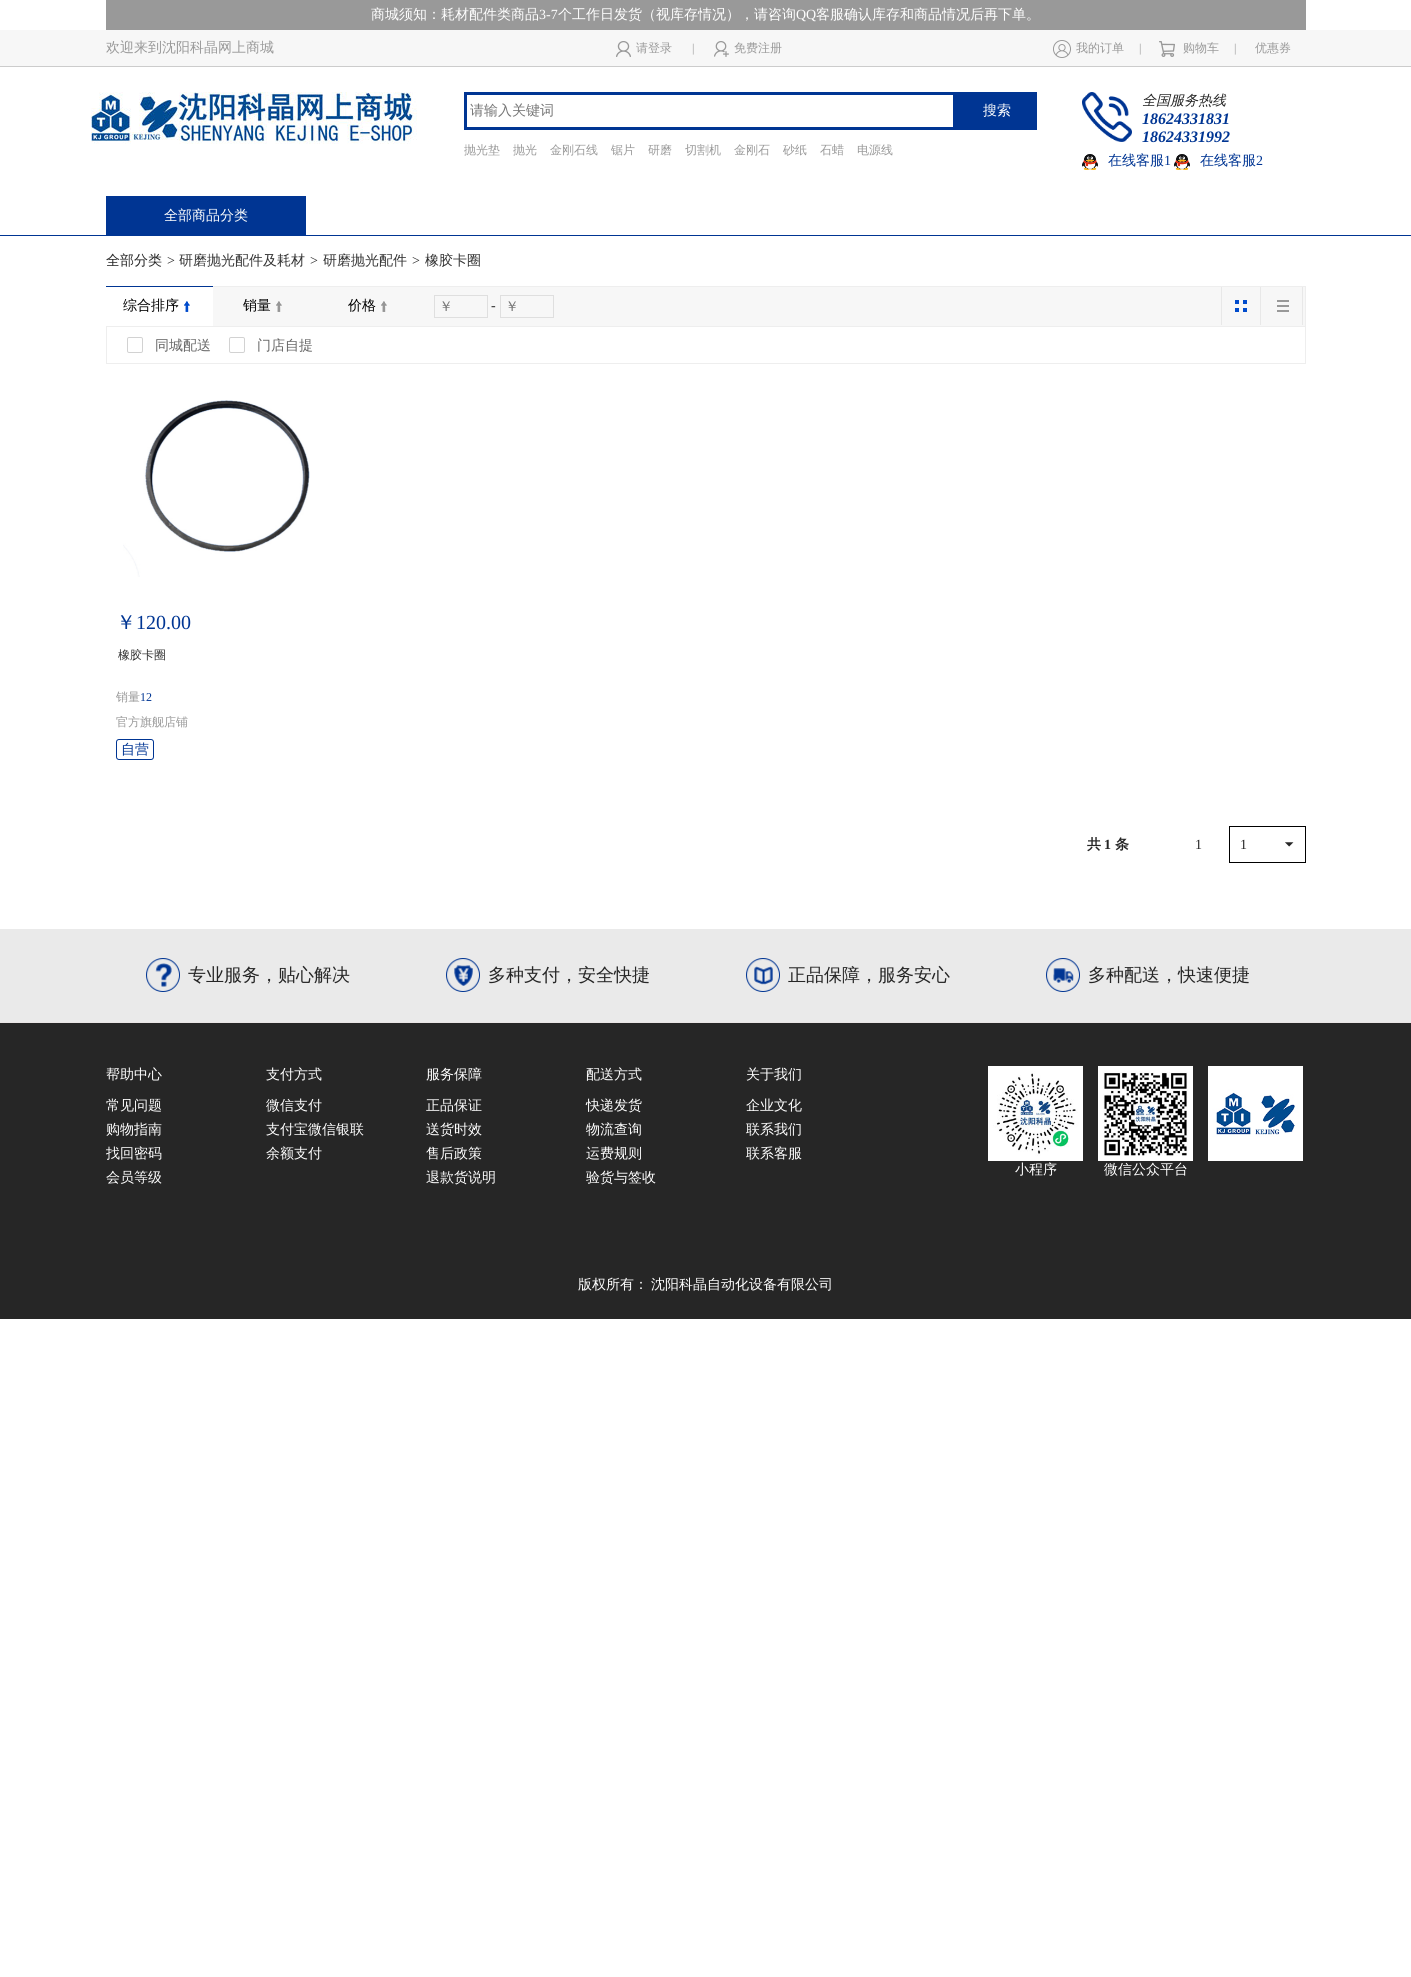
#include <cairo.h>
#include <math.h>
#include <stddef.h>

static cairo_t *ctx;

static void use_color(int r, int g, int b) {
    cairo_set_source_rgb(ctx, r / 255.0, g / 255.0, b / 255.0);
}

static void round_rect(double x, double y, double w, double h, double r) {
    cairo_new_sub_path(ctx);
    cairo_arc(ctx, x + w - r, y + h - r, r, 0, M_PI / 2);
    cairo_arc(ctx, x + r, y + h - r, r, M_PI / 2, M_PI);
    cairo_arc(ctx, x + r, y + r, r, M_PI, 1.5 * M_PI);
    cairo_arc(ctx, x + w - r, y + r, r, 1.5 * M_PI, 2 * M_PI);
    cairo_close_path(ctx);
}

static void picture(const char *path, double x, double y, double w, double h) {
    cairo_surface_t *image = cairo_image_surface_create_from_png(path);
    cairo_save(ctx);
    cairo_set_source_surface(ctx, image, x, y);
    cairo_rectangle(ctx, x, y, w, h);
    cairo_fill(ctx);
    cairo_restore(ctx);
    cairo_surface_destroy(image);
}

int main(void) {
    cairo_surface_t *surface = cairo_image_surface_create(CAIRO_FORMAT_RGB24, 1411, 1977);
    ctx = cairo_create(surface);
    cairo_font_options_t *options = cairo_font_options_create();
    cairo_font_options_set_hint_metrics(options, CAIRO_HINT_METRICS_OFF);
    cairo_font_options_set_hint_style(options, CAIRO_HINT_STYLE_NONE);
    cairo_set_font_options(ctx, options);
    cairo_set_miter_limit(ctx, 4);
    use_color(255, 255, 255);
    cairo_paint(ctx);
    use_color(153, 153, 153);
    cairo_rectangle(ctx, 106, 0, 1200, 30);
    cairo_fill(ctx);
    cairo_select_font_face(ctx, "WenQuanYi Zen Hei Medium", CAIRO_FONT_SLANT_NORMAL, CAIRO_FONT_WEIGHT_NORMAL);
    cairo_set_font_size(ctx, 14);
    use_color(255, 255, 255);
    cairo_move_to(ctx, 371, 19);
    cairo_show_text(ctx, "商城须知：耗材配件类商品");
    cairo_select_font_face(ctx, "Liberation Serif", CAIRO_FONT_SLANT_NORMAL, CAIRO_FONT_WEIGHT_NORMAL);
    cairo_move_to(ctx, 539, 19);
    cairo_show_text(ctx, "3-7");
    cairo_select_font_face(ctx, "WenQuanYi Zen Hei Medium", CAIRO_FONT_SLANT_NORMAL, CAIRO_FONT_WEIGHT_NORMAL);
    cairo_move_to(ctx, 558, 19);
    cairo_show_text(ctx, "个工作日发货（视库存情况），请咨询");
    cairo_select_font_face(ctx, "Liberation Serif", CAIRO_FONT_SLANT_NORMAL, CAIRO_FONT_WEIGHT_NORMAL);
    cairo_move_to(ctx, 796, 19);
    cairo_show_text(ctx, "QQ");
    cairo_select_font_face(ctx, "WenQuanYi Zen Hei Medium", CAIRO_FONT_SLANT_NORMAL, CAIRO_FONT_WEIGHT_NORMAL);
    cairo_move_to(ctx, 816, 19);
    cairo_show_text(ctx, "客服确认库存和商品情况后再下单。");
    use_color(247, 247, 247);
    cairo_rectangle(ctx, 0, 30, 1411, 36);
    cairo_fill(ctx);
    use_color(204, 204, 204);
    cairo_rectangle(ctx, 0, 66, 1411, 1);
    cairo_fill(ctx);
    use_color(153, 153, 153);
    cairo_move_to(ctx, 106, 52);
    cairo_show_text(ctx, "欢迎来到沈阳科晶网上商城");
    picture("img1.png", 616, 41, 15, 16);
    cairo_set_font_size(ctx, 12);
    cairo_move_to(ctx, 636, 52);
    cairo_show_text(ctx, "请登录");
    cairo_select_font_face(ctx, "Liberation Serif", CAIRO_FONT_SLANT_NORMAL, CAIRO_FONT_WEIGHT_NORMAL);
    cairo_move_to(ctx, 692, 52);
    cairo_show_text(ctx, "|");
    picture("img2.png", 714, 41, 15, 16);
    cairo_select_font_face(ctx, "WenQuanYi Zen Hei Medium", CAIRO_FONT_SLANT_NORMAL, CAIRO_FONT_WEIGHT_NORMAL);
    cairo_move_to(ctx, 734, 52);
    cairo_show_text(ctx, "免费注册");
    picture("img3.png", 1053, 40, 18, 18);
    cairo_move_to(ctx, 1076, 52);
    cairo_show_text(ctx, "我的订单");
    cairo_select_font_face(ctx, "Liberation Serif", CAIRO_FONT_SLANT_NORMAL, CAIRO_FONT_WEIGHT_NORMAL);
    cairo_move_to(ctx, 1139, 52);
    cairo_show_text(ctx, "|");
    picture("img4.png", 1159, 41, 16, 16);
    cairo_select_font_face(ctx, "WenQuanYi Zen Hei Medium", CAIRO_FONT_SLANT_NORMAL, CAIRO_FONT_WEIGHT_NORMAL);
    cairo_move_to(ctx, 1183, 52);
    cairo_show_text(ctx, "购物车");
    cairo_select_font_face(ctx, "Liberation Serif", CAIRO_FONT_SLANT_NORMAL, CAIRO_FONT_WEIGHT_NORMAL);
    cairo_move_to(ctx, 1234, 52);
    cairo_show_text(ctx, "|");
    cairo_select_font_face(ctx, "WenQuanYi Zen Hei Medium", CAIRO_FONT_SLANT_NORMAL, CAIRO_FONT_WEIGHT_NORMAL);
    cairo_move_to(ctx, 1255, 52);
    cairo_show_text(ctx, "优惠券");
    picture("img5.png", 91, 92, 326, 52);
    use_color(0, 53, 147);
    cairo_rectangle(ctx, 464, 92, 573, 38);
    cairo_fill(ctx);
    use_color(255, 255, 255);
    cairo_rectangle(ctx, 467, 95, 486, 32);
    cairo_fill(ctx);
    cairo_set_font_size(ctx, 14);
    use_color(117, 117, 117);
    cairo_move_to(ctx, 470, 115);
    cairo_show_text(ctx, "请输入关键词");
    use_color(255, 255, 255);
    cairo_move_to(ctx, 983, 115);
    cairo_show_text(ctx, "搜索");
    cairo_set_font_size(ctx, 12);
    use_color(153, 153, 153);
    cairo_move_to(ctx, 464, 154);
    cairo_show_text(ctx, "抛光垫");
    cairo_move_to(ctx, 513, 154);
    cairo_show_text(ctx, "抛光");
    cairo_move_to(ctx, 550, 154);
    cairo_show_text(ctx, "金刚石线");
    cairo_move_to(ctx, 611, 154);
    cairo_show_text(ctx, "锯片");
    cairo_move_to(ctx, 648, 154);
    cairo_show_text(ctx, "研磨");
    cairo_move_to(ctx, 685, 154);
    cairo_show_text(ctx, "切割机");
    cairo_move_to(ctx, 734, 154);
    cairo_show_text(ctx, "金刚石");
    cairo_move_to(ctx, 783, 154);
    cairo_show_text(ctx, "砂纸");
    cairo_move_to(ctx, 820, 154);
    cairo_show_text(ctx, "石蜡");
    cairo_move_to(ctx, 857, 154);
    cairo_show_text(ctx, "电源线");
    picture("img6.png", 1082, 92, 50, 50);
    cairo_select_font_face(ctx, "WenQuanYi Zen Hei Medium", CAIRO_FONT_SLANT_ITALIC, CAIRO_FONT_WEIGHT_NORMAL);
    cairo_set_font_size(ctx, 14);
    use_color(38, 38, 38);
    cairo_move_to(ctx, 1142, 105);
    cairo_show_text(ctx, "全国服务热线");
    cairo_select_font_face(ctx, "Liberation Serif", CAIRO_FONT_SLANT_ITALIC, CAIRO_FONT_WEIGHT_BOLD);
    cairo_set_font_size(ctx, 16);
    use_color(0, 53, 147);
    cairo_move_to(ctx, 1142, 124);
    cairo_show_text(ctx, "18624331831");
    cairo_move_to(ctx, 1142, 142);
    cairo_show_text(ctx, "18624331992");
    picture("img7.png", 1082, 154, 16, 16);
    cairo_select_font_face(ctx, "WenQuanYi Zen Hei Medium", CAIRO_FONT_SLANT_NORMAL, CAIRO_FONT_WEIGHT_NORMAL);
    cairo_set_font_size(ctx, 14);
    cairo_move_to(ctx, 1108, 165);
    cairo_show_text(ctx, "在线客服");
    cairo_select_font_face(ctx, "Liberation Serif", CAIRO_FONT_SLANT_NORMAL, CAIRO_FONT_WEIGHT_NORMAL);
    cairo_move_to(ctx, 1164, 165);
    cairo_show_text(ctx, "1");
    picture("img7.png", 1174, 154, 16, 16);
    cairo_select_font_face(ctx, "WenQuanYi Zen Hei Medium", CAIRO_FONT_SLANT_NORMAL, CAIRO_FONT_WEIGHT_NORMAL);
    cairo_move_to(ctx, 1200, 165);
    cairo_show_text(ctx, "在线客服");
    cairo_select_font_face(ctx, "Liberation Serif", CAIRO_FONT_SLANT_NORMAL, CAIRO_FONT_WEIGHT_NORMAL);
    cairo_move_to(ctx, 1256, 165);
    cairo_show_text(ctx, "2");
    cairo_rectangle(ctx, 0, 235, 1411, 1);
    cairo_fill(ctx);
    cairo_rectangle(ctx, 106, 196, 200, 39);
    cairo_fill(ctx);
    cairo_select_font_face(ctx, "WenQuanYi Zen Hei Medium", CAIRO_FONT_SLANT_NORMAL, CAIRO_FONT_WEIGHT_NORMAL);
    use_color(255, 255, 255);
    cairo_move_to(ctx, 164, 220);
    cairo_show_text(ctx, "全部商品分类");
    use_color(38, 38, 38);
    cairo_move_to(ctx, 106, 265);
    cairo_show_text(ctx, "全部分类");
    cairo_select_font_face(ctx, "Liberation Serif", CAIRO_FONT_SLANT_NORMAL, CAIRO_FONT_WEIGHT_NORMAL);
    cairo_move_to(ctx, 167, 265);
    cairo_show_text(ctx, ">");
    cairo_select_font_face(ctx, "WenQuanYi Zen Hei Medium", CAIRO_FONT_SLANT_NORMAL, CAIRO_FONT_WEIGHT_NORMAL);
    use_color(51, 51, 51);
    cairo_move_to(ctx, 179, 265);
    cairo_show_text(ctx, "研磨抛光配件及耗材");
    cairo_select_font_face(ctx, "Liberation Serif", CAIRO_FONT_SLANT_NORMAL, CAIRO_FONT_WEIGHT_NORMAL);
    use_color(38, 38, 38);
    cairo_move_to(ctx, 310, 265);
    cairo_show_text(ctx, ">");
    cairo_select_font_face(ctx, "WenQuanYi Zen Hei Medium", CAIRO_FONT_SLANT_NORMAL, CAIRO_FONT_WEIGHT_NORMAL);
    use_color(51, 51, 51);
    cairo_move_to(ctx, 323, 265);
    cairo_show_text(ctx, "研磨抛光配件");
    cairo_select_font_face(ctx, "Liberation Serif", CAIRO_FONT_SLANT_NORMAL, CAIRO_FONT_WEIGHT_NORMAL);
    use_color(38, 38, 38);
    cairo_move_to(ctx, 412, 265);
    cairo_show_text(ctx, ">");
    cairo_select_font_face(ctx, "WenQuanYi Zen Hei Medium", CAIRO_FONT_SLANT_NORMAL, CAIRO_FONT_WEIGHT_NORMAL);
    use_color(51, 51, 51);
    cairo_move_to(ctx, 425, 265);
    cairo_show_text(ctx, "橡胶卡圈");
    use_color(247, 247, 247);
    cairo_rectangle(ctx, 213, 287, 1092, 39);
    cairo_fill(ctx);
    use_color(238, 238, 238);
    cairo_rectangle(ctx, 213, 286, 1093, 1);
    cairo_fill(ctx);
    cairo_rectangle(ctx, 1305, 286, 1, 40);
    cairo_fill(ctx);
    use_color(0, 53, 147);
    cairo_rectangle(ctx, 106, 286, 107, 1);
    cairo_fill(ctx);
    use_color(0, 0, 0);
    cairo_move_to(ctx, 123, 310);
    cairo_show_text(ctx, "综合排序");
    picture("img8.png", 184, 301, 6, 11);
    cairo_move_to(ctx, 243, 310);
    cairo_show_text(ctx, "销量");
    picture("img9.png", 276, 301, 6, 11);
    cairo_move_to(ctx, 348, 310);
    cairo_show_text(ctx, "价格");
    picture("img9.png", 381, 301, 6, 11);
    cairo_rectangle(ctx, 434.5, 295.5, 53, 22);
    use_color(223, 223, 223);
    cairo_set_line_width(ctx, 1);
    cairo_stroke(ctx);
    use_color(117, 117, 117);
    cairo_move_to(ctx, 439, 311);
    cairo_show_text(ctx, "￥");
    cairo_select_font_face(ctx, "Liberation Serif", CAIRO_FONT_SLANT_NORMAL, CAIRO_FONT_WEIGHT_NORMAL);
    use_color(38, 38, 38);
    cairo_move_to(ctx, 491, 310);
    cairo_show_text(ctx, "-");
    cairo_rectangle(ctx, 500.5, 295.5, 53, 22);
    use_color(223, 223, 223);
    cairo_stroke(ctx);
    cairo_select_font_face(ctx, "WenQuanYi Zen Hei Medium", CAIRO_FONT_SLANT_NORMAL, CAIRO_FONT_WEIGHT_NORMAL);
    use_color(117, 117, 117);
    cairo_move_to(ctx, 505, 311);
    cairo_show_text(ctx, "￥");
    use_color(232, 232, 232);
    cairo_rectangle(ctx, 1260, 287, 1, 38);
    cairo_fill(ctx);
    cairo_rectangle(ctx, 1221, 287, 1, 38);
    cairo_fill(ctx);
    picture("img10.png", 1235, 300, 12, 12);
    cairo_rectangle(ctx, 1302, 287, 1, 38);
    cairo_fill(ctx);
    picture("img11.png", 1277, 300, 12, 12);
    cairo_rectangle(ctx, 106.5, 326.5, 1199, 37);
    use_color(238, 238, 238);
    cairo_stroke(ctx);
    round_rect(127.5, 337.5, 15, 15, 1.5);
    use_color(210, 210, 210);
    cairo_stroke(ctx);
    use_color(102, 102, 102);
    cairo_move_to(ctx, 155, 350);
    cairo_show_text(ctx, "同城配送");
    round_rect(229.5, 337.5, 15, 15, 1.5);
    use_color(210, 210, 210);
    cairo_stroke(ctx);
    use_color(102, 102, 102);
    cairo_move_to(ctx, 257, 350);
    cairo_show_text(ctx, "门店自提");
    picture("img12.png", 123, 400, 187, 177);
    cairo_set_font_size(ctx, 20);
    use_color(0, 53, 147);
    cairo_move_to(ctx, 116, 629);
    cairo_show_text(ctx, "￥");
    cairo_select_font_face(ctx, "Liberation Serif", CAIRO_FONT_SLANT_NORMAL, CAIRO_FONT_WEIGHT_NORMAL);
    cairo_move_to(ctx, 136, 629);
    cairo_show_text(ctx, "120.00");
    cairo_select_font_face(ctx, "WenQuanYi Zen Hei Medium", CAIRO_FONT_SLANT_NORMAL, CAIRO_FONT_WEIGHT_NORMAL);
    cairo_set_font_size(ctx, 12);
    use_color(51, 51, 51);
    cairo_move_to(ctx, 118, 659);
    cairo_show_text(ctx, "橡胶卡圈");
    use_color(153, 153, 153);
    cairo_move_to(ctx, 116, 701);
    cairo_show_text(ctx, "销量");
    cairo_select_font_face(ctx, "Liberation Serif", CAIRO_FONT_SLANT_NORMAL, CAIRO_FONT_WEIGHT_NORMAL);
    use_color(0, 53, 147);
    cairo_move_to(ctx, 140, 701);
    cairo_show_text(ctx, "12");
    cairo_select_font_face(ctx, "WenQuanYi Zen Hei Medium", CAIRO_FONT_SLANT_NORMAL, CAIRO_FONT_WEIGHT_NORMAL);
    use_color(153, 153, 153);
    cairo_move_to(ctx, 116, 726);
    cairo_show_text(ctx, "官方旗舰店铺");
    round_rect(116.5, 739.5, 37, 20, 2.5);
    use_color(0, 53, 147);
    cairo_stroke(ctx);
    cairo_set_font_size(ctx, 14);
    cairo_move_to(ctx, 121, 754);
    cairo_show_text(ctx, "自营");
    cairo_select_font_face(ctx, "WenQuanYi Zen Hei", CAIRO_FONT_SLANT_NORMAL, CAIRO_FONT_WEIGHT_BOLD);
    use_color(38, 38, 38);
    cairo_move_to(ctx, 1087, 849);
    cairo_show_text(ctx, "共");
    cairo_select_font_face(ctx, "Liberation Serif", CAIRO_FONT_SLANT_NORMAL, CAIRO_FONT_WEIGHT_BOLD);
    cairo_move_to(ctx, 1104, 849);
    cairo_show_text(ctx, "1");
    cairo_select_font_face(ctx, "WenQuanYi Zen Hei", CAIRO_FONT_SLANT_NORMAL, CAIRO_FONT_WEIGHT_BOLD);
    cairo_move_to(ctx, 1115, 849);
    cairo_show_text(ctx, "条");
    cairo_select_font_face(ctx, "Liberation Serif", CAIRO_FONT_SLANT_NORMAL, CAIRO_FONT_WEIGHT_NORMAL);
    cairo_move_to(ctx, 1195, 849);
    cairo_show_text(ctx, "1");
    cairo_rectangle(ctx, 1229.5, 826.5, 76, 36);
    use_color(0, 0, 0);
    cairo_stroke(ctx);
    use_color(38, 38, 38);
    cairo_move_to(ctx, 1240, 849);
    cairo_show_text(ctx, "1");
    picture("img13.png", 1285, 842, 9, 5);
    use_color(234, 234, 234);
    cairo_rectangle(ctx, 0, 929, 1411, 93);
    cairo_fill(ctx);
    use_color(233, 229, 229);
    cairo_rectangle(ctx, 0, 1022, 1411, 1);
    cairo_fill(ctx);
    picture("img14.png", 146, 958, 34, 34);
    cairo_select_font_face(ctx, "WenQuanYi Zen Hei Medium", CAIRO_FONT_SLANT_NORMAL, CAIRO_FONT_WEIGHT_NORMAL);
    cairo_set_font_size(ctx, 18);
    use_color(38, 38, 38);
    cairo_move_to(ctx, 188, 981);
    cairo_show_text(ctx, "专业服务，贴心解决");
    picture("img15.png", 446, 958, 34, 34);
    cairo_move_to(ctx, 488, 981);
    cairo_show_text(ctx, "多种支付，安全快捷");
    picture("img16.png", 746, 958, 34, 34);
    cairo_move_to(ctx, 788, 981);
    cairo_show_text(ctx, "正品保障，服务安心");
    picture("img17.png", 1046, 958, 34, 34);
    cairo_move_to(ctx, 1088, 981);
    cairo_show_text(ctx, "多种配送，快速便捷");
    cairo_rectangle(ctx, 0, 1023, 1411, 296);
    cairo_fill(ctx);
    cairo_set_font_size(ctx, 14);
    use_color(255, 255, 255);
    cairo_move_to(ctx, 106, 1079);
    cairo_show_text(ctx, "帮助中心");
    cairo_move_to(ctx, 106, 1110);
    cairo_show_text(ctx, "常见问题");
    cairo_move_to(ctx, 106, 1134);
    cairo_show_text(ctx, "购物指南");
    cairo_move_to(ctx, 106, 1158);
    cairo_show_text(ctx, "找回密码");
    cairo_move_to(ctx, 106, 1182);
    cairo_show_text(ctx, "会员等级");
    cairo_move_to(ctx, 266, 1079);
    cairo_show_text(ctx, "支付方式");
    cairo_move_to(ctx, 266, 1110);
    cairo_show_text(ctx, "微信支付");
    cairo_move_to(ctx, 266, 1134);
    cairo_show_text(ctx, "支付宝微信银联");
    cairo_move_to(ctx, 266, 1158);
    cairo_show_text(ctx, "余额支付");
    cairo_move_to(ctx, 426, 1079);
    cairo_show_text(ctx, "服务保障");
    cairo_move_to(ctx, 426, 1110);
    cairo_show_text(ctx, "正品保证");
    cairo_move_to(ctx, 426, 1134);
    cairo_show_text(ctx, "送货时效");
    cairo_move_to(ctx, 426, 1158);
    cairo_show_text(ctx, "售后政策");
    cairo_move_to(ctx, 426, 1182);
    cairo_show_text(ctx, "退款货说明");
    cairo_move_to(ctx, 586, 1079);
    cairo_show_text(ctx, "配送方式");
    cairo_move_to(ctx, 586, 1110);
    cairo_show_text(ctx, "快递发货");
    cairo_move_to(ctx, 586, 1134);
    cairo_show_text(ctx, "物流查询");
    cairo_move_to(ctx, 586, 1158);
    cairo_show_text(ctx, "运费规则");
    cairo_move_to(ctx, 586, 1182);
    cairo_show_text(ctx, "验货与签收");
    cairo_move_to(ctx, 746, 1079);
    cairo_show_text(ctx, "关于我们");
    cairo_move_to(ctx, 746, 1110);
    cairo_show_text(ctx, "企业文化");
    cairo_move_to(ctx, 746, 1134);
    cairo_show_text(ctx, "联系我们");
    cairo_move_to(ctx, 746, 1158);
    cairo_show_text(ctx, "联系客服");
    picture("img18.png", 1208, 1066, 95, 95);
    picture("img19.png", 988, 1066, 95, 95);
    cairo_move_to(ctx, 1015, 1174);
    cairo_show_text(ctx, "小程序");
    picture("img20.png", 1098, 1066, 95, 95);
    cairo_move_to(ctx, 1104, 1174);
    cairo_show_text(ctx, "微信公众平台");
    cairo_move_to(ctx, 578, 1289);
    cairo_show_text(ctx, "版权所有：");
    cairo_move_to(ctx, 651, 1289);
    cairo_show_text(ctx, "沈阳科晶自动化设备有限公司");
    cairo_surface_write_to_png(surface, "result.png");
    cairo_font_options_destroy(options);
    cairo_destroy(ctx);
    cairo_surface_destroy(surface);
    return 0;
}
